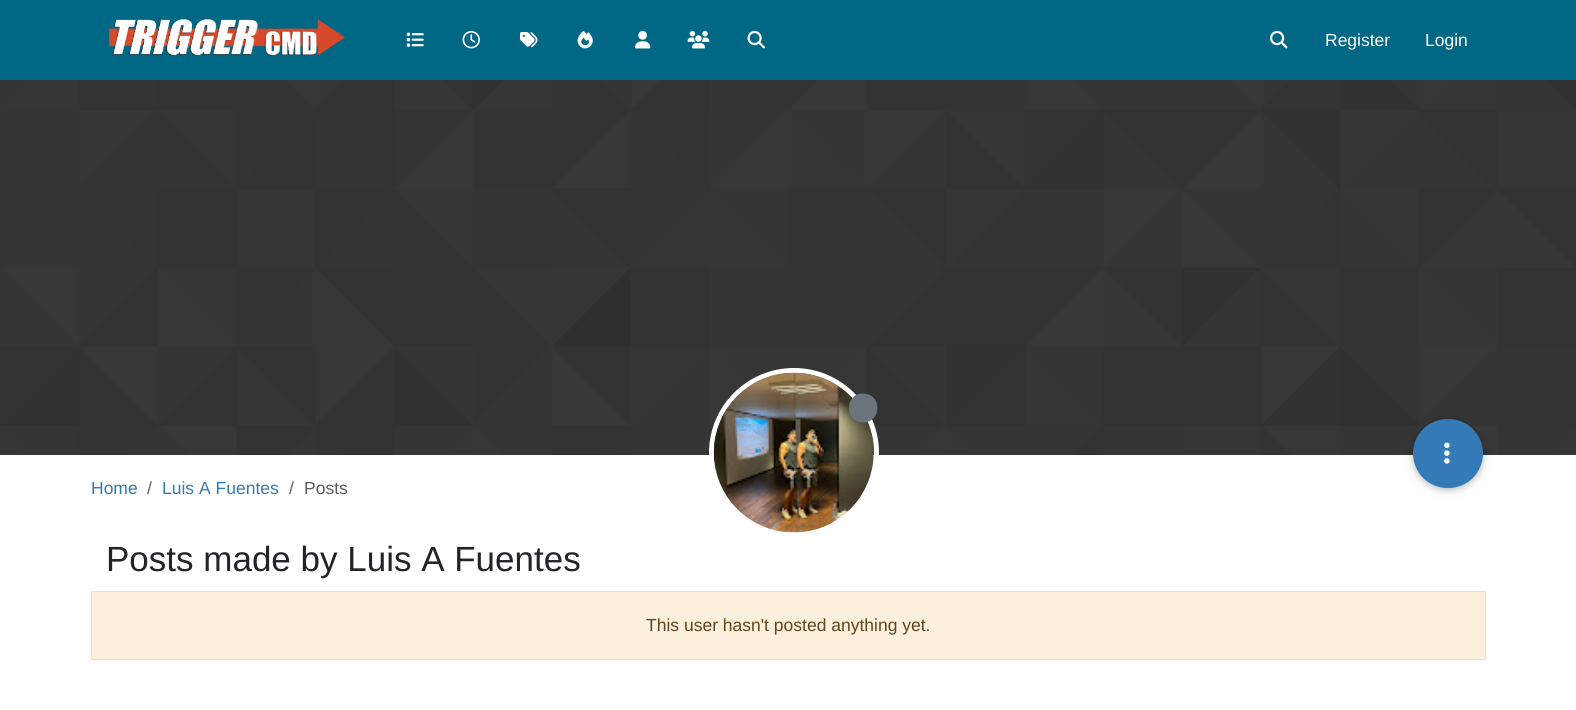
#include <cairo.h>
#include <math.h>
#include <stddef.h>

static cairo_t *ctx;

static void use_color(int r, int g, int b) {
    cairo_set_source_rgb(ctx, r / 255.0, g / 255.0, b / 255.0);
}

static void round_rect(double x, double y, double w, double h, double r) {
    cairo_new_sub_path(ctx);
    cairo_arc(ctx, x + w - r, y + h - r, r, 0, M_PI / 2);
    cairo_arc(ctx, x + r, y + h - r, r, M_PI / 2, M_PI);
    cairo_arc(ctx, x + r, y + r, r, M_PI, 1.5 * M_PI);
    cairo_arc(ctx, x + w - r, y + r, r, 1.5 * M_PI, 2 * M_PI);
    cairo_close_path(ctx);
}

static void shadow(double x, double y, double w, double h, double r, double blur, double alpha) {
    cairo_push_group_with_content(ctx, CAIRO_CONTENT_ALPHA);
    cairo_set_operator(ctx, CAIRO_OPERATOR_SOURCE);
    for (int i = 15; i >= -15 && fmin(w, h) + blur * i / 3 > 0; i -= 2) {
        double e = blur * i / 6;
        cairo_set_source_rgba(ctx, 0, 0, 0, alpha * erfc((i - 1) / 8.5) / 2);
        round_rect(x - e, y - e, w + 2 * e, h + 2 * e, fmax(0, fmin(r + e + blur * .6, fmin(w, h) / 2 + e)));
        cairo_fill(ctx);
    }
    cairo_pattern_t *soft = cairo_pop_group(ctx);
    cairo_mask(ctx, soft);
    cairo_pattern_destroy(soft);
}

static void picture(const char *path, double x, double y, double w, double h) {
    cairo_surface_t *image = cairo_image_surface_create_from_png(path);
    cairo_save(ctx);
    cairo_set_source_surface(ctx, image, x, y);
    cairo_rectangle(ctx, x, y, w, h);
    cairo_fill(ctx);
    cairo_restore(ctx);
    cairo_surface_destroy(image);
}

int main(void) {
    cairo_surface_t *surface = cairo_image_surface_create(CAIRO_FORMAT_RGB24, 1576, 710);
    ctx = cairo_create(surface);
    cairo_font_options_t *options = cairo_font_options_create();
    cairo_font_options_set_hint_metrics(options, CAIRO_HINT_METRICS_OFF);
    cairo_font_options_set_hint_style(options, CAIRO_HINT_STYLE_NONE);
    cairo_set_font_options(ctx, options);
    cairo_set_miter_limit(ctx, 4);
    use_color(255, 255, 255);
    cairo_paint(ctx);
    use_color(0, 103, 132);
    cairo_rectangle(ctx, 0, 0, 1576, 80);
    cairo_fill(ctx);
    picture("img1.png", 109, 19, 237, 37);
    picture("img2.png", 406, 32, 18, 15);
    picture("img3.png", 462, 30, 18, 19);
    picture("img4.png", 520, 32, 18, 16);
    picture("img5.png", 577, 31, 16, 18);
    picture("img6.png", 635, 30, 16, 19);
    picture("img7.png", 687, 30, 23, 19);
    picture("img8.png", 747, 30, 18, 19);
    picture("img9.png", 1270, 30, 18, 19);
    cairo_select_font_face(ctx, "Liberation Sans", CAIRO_FONT_SLANT_NORMAL, CAIRO_FONT_WEIGHT_NORMAL);
    cairo_set_font_size(ctx, 17.5);
    use_color(255, 255, 255);
    cairo_move_to(ctx, 1325, 46);
    cairo_show_text(ctx, "Register");
    cairo_move_to(ctx, 1425, 46);
    cairo_show_text(ctx, "Login");
    picture("img10.png", 0, 80, 1576, 375);
    cairo_arc(ctx, 794, 453, 82.5, 0, 2 * M_PI);
    cairo_set_line_width(ctx, 5);
    cairo_stroke(ctx);
    picture("img11.png", 713, 372, 161, 161);
    use_color(108, 117, 125);
    cairo_new_path(ctx);
    cairo_move_to(ctx, 863, 422.5);
    cairo_curve_to(ctx, 882.5, 422, 882, 393.5, 863, 393.5);
    cairo_curve_to(ctx, 844.5, 393.5, 844, 422, 863, 422.5);
    cairo_close_path(ctx);
    cairo_fill(ctx);
    use_color(0, 0, 0);
    shadow(1413, 421, 70, 69, 34.5, 6, 0.12);
    shadow(1413, 421, 70, 69, 34.5, 3, 0.16);
    use_color(51, 122, 183);
    round_rect(1413, 419, 70, 69, 34.5);
    cairo_fill(ctx);
    picture("img12.png", 1444, 442, 6, 22);
    cairo_move_to(ctx, 91, 494);
    cairo_show_text(ctx, "Home");
    use_color(89, 92, 95);
    cairo_move_to(ctx, 147, 494);
    cairo_show_text(ctx, "/");
    use_color(51, 122, 183);
    cairo_move_to(ctx, 162, 494);
    cairo_show_text(ctx, "Luis A Fuentes");
    use_color(89, 92, 95);
    cairo_move_to(ctx, 289, 494);
    cairo_show_text(ctx, "/");
    cairo_move_to(ctx, 304, 494);
    cairo_show_text(ctx, "Posts");
    cairo_set_font_size(ctx, 35);
    use_color(33, 37, 41);
    cairo_move_to(ctx, 106, 571);
    cairo_show_text(ctx, "Posts made by Luis A Fuentes");
    use_color(252, 239, 220);
    cairo_rectangle(ctx, 91.5, 591.5, 1394, 68);
    cairo_fill_preserve(ctx);
    use_color(249, 222, 184);
    cairo_set_line_width(ctx, 1);
    cairo_stroke(ctx);
    cairo_set_font_size(ctx, 17.5);
    use_color(96, 69, 31);
    cairo_move_to(ctx, 646, 631);
    cairo_show_text(ctx, "This user hasn't posted anything yet.");
    cairo_surface_write_to_png(surface, "result.png");
    cairo_font_options_destroy(options);
    cairo_destroy(ctx);
    cairo_surface_destroy(surface);
    return 0;
}
